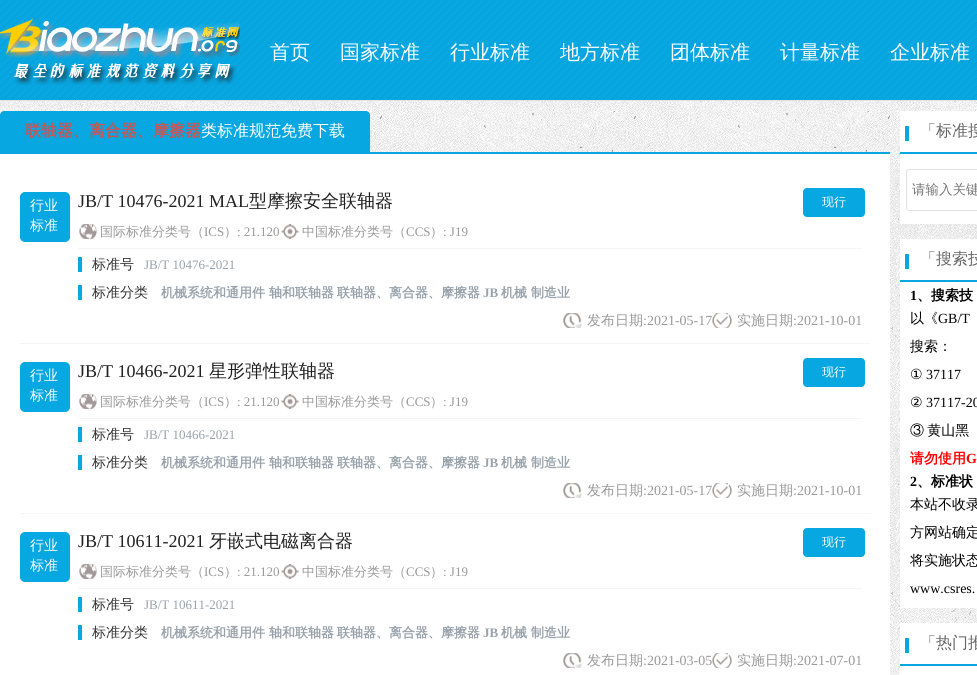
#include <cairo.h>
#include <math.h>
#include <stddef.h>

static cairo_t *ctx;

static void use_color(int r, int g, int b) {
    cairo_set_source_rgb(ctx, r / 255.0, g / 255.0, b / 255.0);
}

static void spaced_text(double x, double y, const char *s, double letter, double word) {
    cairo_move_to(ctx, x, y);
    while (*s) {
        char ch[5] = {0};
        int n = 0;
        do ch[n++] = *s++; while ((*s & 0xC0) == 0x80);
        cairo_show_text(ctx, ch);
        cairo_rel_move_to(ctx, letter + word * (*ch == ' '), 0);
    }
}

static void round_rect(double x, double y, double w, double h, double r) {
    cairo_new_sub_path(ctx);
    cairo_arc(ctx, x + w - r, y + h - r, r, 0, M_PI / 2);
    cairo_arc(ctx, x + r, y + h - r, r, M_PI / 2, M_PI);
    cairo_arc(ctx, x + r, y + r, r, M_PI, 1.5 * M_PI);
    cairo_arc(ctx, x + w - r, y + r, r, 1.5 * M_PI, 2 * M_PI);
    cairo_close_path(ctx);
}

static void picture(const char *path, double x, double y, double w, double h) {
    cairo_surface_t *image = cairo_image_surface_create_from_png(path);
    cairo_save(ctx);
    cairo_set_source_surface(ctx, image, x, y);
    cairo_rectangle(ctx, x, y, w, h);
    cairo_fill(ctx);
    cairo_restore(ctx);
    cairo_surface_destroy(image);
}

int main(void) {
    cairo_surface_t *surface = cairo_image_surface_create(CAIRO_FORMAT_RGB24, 977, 675);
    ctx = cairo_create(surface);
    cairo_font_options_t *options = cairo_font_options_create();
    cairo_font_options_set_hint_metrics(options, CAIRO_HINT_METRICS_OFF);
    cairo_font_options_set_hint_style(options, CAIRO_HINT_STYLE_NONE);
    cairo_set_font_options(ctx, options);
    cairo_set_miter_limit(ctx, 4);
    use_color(255, 255, 255);
    cairo_paint(ctx);
    picture("img1.png", 0, 101, 977, 574);
    picture("img2.png", 0, 0, 977, 100);
    use_color(227, 227, 227);
    cairo_rectangle(ctx, 0, 100, 977, 1);
    cairo_fill(ctx);
    picture("img3.png", 0, 18, 240, 67);
    cairo_select_font_face(ctx, "WenQuanYi Zen Hei Medium", CAIRO_FONT_SLANT_NORMAL, CAIRO_FONT_WEIGHT_NORMAL);
    cairo_set_font_size(ctx, 20);
    use_color(255, 255, 255);
    cairo_move_to(ctx, 270, 59);
    cairo_show_text(ctx, "首页");
    cairo_move_to(ctx, 340, 59);
    cairo_show_text(ctx, "国家标准");
    cairo_move_to(ctx, 450, 59);
    cairo_show_text(ctx, "行业标准");
    cairo_move_to(ctx, 560, 59);
    cairo_show_text(ctx, "地方标准");
    cairo_move_to(ctx, 670, 59);
    cairo_show_text(ctx, "团体标准");
    cairo_move_to(ctx, 780, 59);
    cairo_show_text(ctx, "计量标准");
    cairo_move_to(ctx, 890, 59);
    cairo_show_text(ctx, "企业标准");
    use_color(7, 167, 225);
    cairo_new_path(ctx);
    cairo_move_to(ctx, 4, 111);
    cairo_line_to(ctx, 366, 111);
    cairo_curve_to(ctx, 368, 111, 370, 113, 370, 115);
    cairo_line_to(ctx, 370, 152);
    cairo_line_to(ctx, 0, 152);
    cairo_line_to(ctx, 0, 115);
    cairo_curve_to(ctx, 0, 113, 2, 111, 4, 111);
    cairo_close_path(ctx);
    cairo_fill(ctx);
    cairo_select_font_face(ctx, "WenQuanYi Zen Hei", CAIRO_FONT_SLANT_NORMAL, CAIRO_FONT_WEIGHT_BOLD);
    cairo_set_font_size(ctx, 16);
    use_color(195, 88, 88);
    cairo_move_to(ctx, 25, 136);
    cairo_show_text(ctx, "联轴器、离合器、摩擦器");
    cairo_select_font_face(ctx, "WenQuanYi Zen Hei Medium", CAIRO_FONT_SLANT_NORMAL, CAIRO_FONT_WEIGHT_NORMAL);
    use_color(255, 255, 255);
    cairo_move_to(ctx, 201, 136);
    cairo_show_text(ctx, "类标准规范免费下载");
    cairo_rectangle(ctx, 0, 154, 890, 521);
    cairo_fill(ctx);
    use_color(7, 167, 225);
    cairo_rectangle(ctx, 0, 152, 890, 2);
    cairo_fill(ctx);
    use_color(244, 245, 247);
    cairo_rectangle(ctx, 20, 343, 850, 1);
    cairo_fill(ctx);
    use_color(7, 167, 225);
    round_rect(20, 192, 50, 50, 5);
    cairo_fill(ctx);
    cairo_set_font_size(ctx, 14);
    use_color(255, 255, 255);
    cairo_move_to(ctx, 30, 210);
    cairo_show_text(ctx, "行业");
    cairo_move_to(ctx, 30, 230);
    cairo_show_text(ctx, "标准");
    cairo_select_font_face(ctx, "Liberation Serif", CAIRO_FONT_SLANT_NORMAL, CAIRO_FONT_WEIGHT_NORMAL);
    cairo_set_font_size(ctx, 18);
    use_color(33, 33, 33);
    cairo_move_to(ctx, 78, 207);
    cairo_show_text(ctx, "JB/T 10476-2021 MAL");
    cairo_select_font_face(ctx, "WenQuanYi Zen Hei Medium", CAIRO_FONT_SLANT_NORMAL, CAIRO_FONT_WEIGHT_NORMAL);
    cairo_move_to(ctx, 249, 207);
    cairo_show_text(ctx, "型摩擦安全联轴器");
    use_color(244, 245, 247);
    cairo_rectangle(ctx, 78, 248, 784, 1);
    cairo_fill(ctx);
    picture("img4.png", 79, 224, 18, 15);
    cairo_set_font_size(ctx, 13);
    use_color(153, 153, 153);
    cairo_move_to(ctx, 100, 236);
    cairo_show_text(ctx, "国际标准分类号（");
    cairo_select_font_face(ctx, "Liberation Serif", CAIRO_FONT_SLANT_NORMAL, CAIRO_FONT_WEIGHT_NORMAL);
    cairo_move_to(ctx, 204, 236);
    cairo_show_text(ctx, "ICS");
    cairo_select_font_face(ctx, "WenQuanYi Zen Hei Medium", CAIRO_FONT_SLANT_NORMAL, CAIRO_FONT_WEIGHT_NORMAL);
    cairo_move_to(ctx, 224, 236);
    cairo_show_text(ctx, "）");
    cairo_select_font_face(ctx, "Liberation Serif", CAIRO_FONT_SLANT_NORMAL, CAIRO_FONT_WEIGHT_NORMAL);
    cairo_move_to(ctx, 237, 236);
    cairo_show_text(ctx, ": 21.120");
    picture("img5.png", 281, 224, 18, 15);
    cairo_select_font_face(ctx, "WenQuanYi Zen Hei Medium", CAIRO_FONT_SLANT_NORMAL, CAIRO_FONT_WEIGHT_NORMAL);
    cairo_move_to(ctx, 302, 236);
    cairo_show_text(ctx, "中国标准分类号（");
    cairo_select_font_face(ctx, "Liberation Serif", CAIRO_FONT_SLANT_NORMAL, CAIRO_FONT_WEIGHT_NORMAL);
    cairo_move_to(ctx, 406, 236);
    cairo_show_text(ctx, "CCS");
    cairo_select_font_face(ctx, "WenQuanYi Zen Hei Medium", CAIRO_FONT_SLANT_NORMAL, CAIRO_FONT_WEIGHT_NORMAL);
    cairo_move_to(ctx, 430, 236);
    cairo_show_text(ctx, "）");
    cairo_select_font_face(ctx, "Liberation Serif", CAIRO_FONT_SLANT_NORMAL, CAIRO_FONT_WEIGHT_NORMAL);
    cairo_move_to(ctx, 443, 236);
    cairo_show_text(ctx, ": J19");
    cairo_select_font_face(ctx, "WenQuanYi Zen Hei Medium", CAIRO_FONT_SLANT_NORMAL, CAIRO_FONT_WEIGHT_NORMAL);
    cairo_set_font_size(ctx, 14);
    use_color(51, 51, 51);
    cairo_move_to(ctx, 92, 269);
    cairo_show_text(ctx, "标准号");
    use_color(7, 167, 225);
    cairo_rectangle(ctx, 78, 257, 4, 15);
    cairo_fill(ctx);
    cairo_select_font_face(ctx, "Liberation Serif", CAIRO_FONT_SLANT_NORMAL, CAIRO_FONT_WEIGHT_NORMAL);
    cairo_set_font_size(ctx, 13);
    use_color(153, 162, 170);
    cairo_move_to(ctx, 144, 269);
    cairo_show_text(ctx, "JB/T 10476-2021");
    cairo_select_font_face(ctx, "WenQuanYi Zen Hei Medium", CAIRO_FONT_SLANT_NORMAL, CAIRO_FONT_WEIGHT_NORMAL);
    cairo_set_font_size(ctx, 14);
    use_color(51, 51, 51);
    cairo_move_to(ctx, 92, 297);
    cairo_show_text(ctx, "标准分类");
    use_color(7, 167, 225);
    cairo_rectangle(ctx, 78, 285, 4, 15);
    cairo_fill(ctx);
    cairo_select_font_face(ctx, "WenQuanYi Zen Hei", CAIRO_FONT_SLANT_NORMAL, CAIRO_FONT_WEIGHT_BOLD);
    cairo_set_font_size(ctx, 13);
    use_color(153, 162, 170);
    cairo_move_to(ctx, 161, 297);
    cairo_show_text(ctx, "机械系统和通用件");
    cairo_move_to(ctx, 269, 297);
    cairo_show_text(ctx, "轴和联轴器");
    cairo_move_to(ctx, 337, 297);
    cairo_show_text(ctx, "联轴器、离合器、摩擦器");
    cairo_select_font_face(ctx, "Liberation Serif", CAIRO_FONT_SLANT_NORMAL, CAIRO_FONT_WEIGHT_BOLD);
    cairo_move_to(ctx, 483, 297);
    cairo_show_text(ctx, "JB");
    cairo_select_font_face(ctx, "WenQuanYi Zen Hei", CAIRO_FONT_SLANT_NORMAL, CAIRO_FONT_WEIGHT_BOLD);
    cairo_move_to(ctx, 501, 297);
    cairo_show_text(ctx, "机械");
    cairo_move_to(ctx, 531, 297);
    cairo_show_text(ctx, "制造业");
    use_color(7, 167, 225);
    round_rect(803, 188, 62, 29, 4);
    cairo_fill(ctx);
    cairo_select_font_face(ctx, "WenQuanYi Zen Hei Medium", CAIRO_FONT_SLANT_NORMAL, CAIRO_FONT_WEIGHT_NORMAL);
    cairo_set_font_size(ctx, 12);
    use_color(255, 255, 255);
    cairo_move_to(ctx, 822, 206);
    cairo_show_text(ctx, "现行");
    picture("img6.png", 563, 313, 19, 15);
    cairo_set_font_size(ctx, 14);
    use_color(153, 153, 153);
    cairo_move_to(ctx, 587, 325);
    cairo_show_text(ctx, "发布日期");
    cairo_select_font_face(ctx, "Liberation Serif", CAIRO_FONT_SLANT_NORMAL, CAIRO_FONT_WEIGHT_NORMAL);
    cairo_move_to(ctx, 643, 325);
    cairo_show_text(ctx, ":2021-05-17");
    picture("img7.png", 712, 313, 20, 15);
    cairo_select_font_face(ctx, "WenQuanYi Zen Hei Medium", CAIRO_FONT_SLANT_NORMAL, CAIRO_FONT_WEIGHT_NORMAL);
    cairo_move_to(ctx, 737, 325);
    cairo_show_text(ctx, "实施日期");
    cairo_select_font_face(ctx, "Liberation Serif", CAIRO_FONT_SLANT_NORMAL, CAIRO_FONT_WEIGHT_NORMAL);
    cairo_move_to(ctx, 793, 325);
    cairo_show_text(ctx, ":2021-10-01");
    use_color(244, 245, 247);
    cairo_rectangle(ctx, 20, 513, 850, 1);
    cairo_fill(ctx);
    use_color(7, 167, 225);
    round_rect(20, 362, 50, 50, 5);
    cairo_fill(ctx);
    cairo_select_font_face(ctx, "WenQuanYi Zen Hei Medium", CAIRO_FONT_SLANT_NORMAL, CAIRO_FONT_WEIGHT_NORMAL);
    use_color(255, 255, 255);
    cairo_move_to(ctx, 30, 380);
    cairo_show_text(ctx, "行业");
    cairo_move_to(ctx, 30, 400);
    cairo_show_text(ctx, "标准");
    cairo_select_font_face(ctx, "Liberation Serif", CAIRO_FONT_SLANT_NORMAL, CAIRO_FONT_WEIGHT_NORMAL);
    cairo_set_font_size(ctx, 18);
    use_color(33, 33, 33);
    cairo_move_to(ctx, 78, 377);
    cairo_show_text(ctx, "JB/T 10466-2021");
    cairo_select_font_face(ctx, "WenQuanYi Zen Hei Medium", CAIRO_FONT_SLANT_NORMAL, CAIRO_FONT_WEIGHT_NORMAL);
    cairo_move_to(ctx, 209, 377);
    cairo_show_text(ctx, "星形弹性联轴器");
    use_color(244, 245, 247);
    cairo_rectangle(ctx, 78, 418, 784, 1);
    cairo_fill(ctx);
    picture("img4.png", 79, 394, 18, 15);
    cairo_set_font_size(ctx, 13);
    use_color(153, 153, 153);
    cairo_move_to(ctx, 100, 406);
    cairo_show_text(ctx, "国际标准分类号（");
    cairo_select_font_face(ctx, "Liberation Serif", CAIRO_FONT_SLANT_NORMAL, CAIRO_FONT_WEIGHT_NORMAL);
    cairo_move_to(ctx, 204, 406);
    cairo_show_text(ctx, "ICS");
    cairo_select_font_face(ctx, "WenQuanYi Zen Hei Medium", CAIRO_FONT_SLANT_NORMAL, CAIRO_FONT_WEIGHT_NORMAL);
    cairo_move_to(ctx, 224, 406);
    cairo_show_text(ctx, "）");
    cairo_select_font_face(ctx, "Liberation Serif", CAIRO_FONT_SLANT_NORMAL, CAIRO_FONT_WEIGHT_NORMAL);
    cairo_move_to(ctx, 237, 406);
    cairo_show_text(ctx, ": 21.120");
    picture("img5.png", 281, 394, 18, 15);
    cairo_select_font_face(ctx, "WenQuanYi Zen Hei Medium", CAIRO_FONT_SLANT_NORMAL, CAIRO_FONT_WEIGHT_NORMAL);
    cairo_move_to(ctx, 302, 406);
    cairo_show_text(ctx, "中国标准分类号（");
    cairo_select_font_face(ctx, "Liberation Serif", CAIRO_FONT_SLANT_NORMAL, CAIRO_FONT_WEIGHT_NORMAL);
    cairo_move_to(ctx, 406, 406);
    cairo_show_text(ctx, "CCS");
    cairo_select_font_face(ctx, "WenQuanYi Zen Hei Medium", CAIRO_FONT_SLANT_NORMAL, CAIRO_FONT_WEIGHT_NORMAL);
    cairo_move_to(ctx, 430, 406);
    cairo_show_text(ctx, "）");
    cairo_select_font_face(ctx, "Liberation Serif", CAIRO_FONT_SLANT_NORMAL, CAIRO_FONT_WEIGHT_NORMAL);
    cairo_move_to(ctx, 443, 406);
    cairo_show_text(ctx, ": J19");
    cairo_select_font_face(ctx, "WenQuanYi Zen Hei Medium", CAIRO_FONT_SLANT_NORMAL, CAIRO_FONT_WEIGHT_NORMAL);
    cairo_set_font_size(ctx, 14);
    use_color(51, 51, 51);
    cairo_move_to(ctx, 92, 439);
    cairo_show_text(ctx, "标准号");
    use_color(7, 167, 225);
    cairo_rectangle(ctx, 78, 427, 4, 15);
    cairo_fill(ctx);
    cairo_select_font_face(ctx, "Liberation Serif", CAIRO_FONT_SLANT_NORMAL, CAIRO_FONT_WEIGHT_NORMAL);
    cairo_set_font_size(ctx, 13);
    use_color(153, 162, 170);
    cairo_move_to(ctx, 144, 439);
    cairo_show_text(ctx, "JB/T 10466-2021");
    cairo_select_font_face(ctx, "WenQuanYi Zen Hei Medium", CAIRO_FONT_SLANT_NORMAL, CAIRO_FONT_WEIGHT_NORMAL);
    cairo_set_font_size(ctx, 14);
    use_color(51, 51, 51);
    cairo_move_to(ctx, 92, 467);
    cairo_show_text(ctx, "标准分类");
    use_color(7, 167, 225);
    cairo_rectangle(ctx, 78, 455, 4, 15);
    cairo_fill(ctx);
    cairo_select_font_face(ctx, "WenQuanYi Zen Hei", CAIRO_FONT_SLANT_NORMAL, CAIRO_FONT_WEIGHT_BOLD);
    cairo_set_font_size(ctx, 13);
    use_color(153, 162, 170);
    cairo_move_to(ctx, 161, 467);
    cairo_show_text(ctx, "机械系统和通用件");
    cairo_move_to(ctx, 269, 467);
    cairo_show_text(ctx, "轴和联轴器");
    cairo_move_to(ctx, 337, 467);
    cairo_show_text(ctx, "联轴器、离合器、摩擦器");
    cairo_select_font_face(ctx, "Liberation Serif", CAIRO_FONT_SLANT_NORMAL, CAIRO_FONT_WEIGHT_BOLD);
    cairo_move_to(ctx, 483, 467);
    cairo_show_text(ctx, "JB");
    cairo_select_font_face(ctx, "WenQuanYi Zen Hei", CAIRO_FONT_SLANT_NORMAL, CAIRO_FONT_WEIGHT_BOLD);
    cairo_move_to(ctx, 501, 467);
    cairo_show_text(ctx, "机械");
    cairo_move_to(ctx, 531, 467);
    cairo_show_text(ctx, "制造业");
    use_color(7, 167, 225);
    round_rect(803, 358, 62, 29, 4);
    cairo_fill(ctx);
    cairo_select_font_face(ctx, "WenQuanYi Zen Hei Medium", CAIRO_FONT_SLANT_NORMAL, CAIRO_FONT_WEIGHT_NORMAL);
    cairo_set_font_size(ctx, 12);
    use_color(255, 255, 255);
    cairo_move_to(ctx, 822, 376);
    cairo_show_text(ctx, "现行");
    picture("img6.png", 563, 483, 19, 15);
    cairo_set_font_size(ctx, 14);
    use_color(153, 153, 153);
    cairo_move_to(ctx, 587, 495);
    cairo_show_text(ctx, "发布日期");
    cairo_select_font_face(ctx, "Liberation Serif", CAIRO_FONT_SLANT_NORMAL, CAIRO_FONT_WEIGHT_NORMAL);
    cairo_move_to(ctx, 643, 495);
    cairo_show_text(ctx, ":2021-05-17");
    picture("img7.png", 712, 483, 20, 15);
    cairo_select_font_face(ctx, "WenQuanYi Zen Hei Medium", CAIRO_FONT_SLANT_NORMAL, CAIRO_FONT_WEIGHT_NORMAL);
    cairo_move_to(ctx, 737, 495);
    cairo_show_text(ctx, "实施日期");
    cairo_select_font_face(ctx, "Liberation Serif", CAIRO_FONT_SLANT_NORMAL, CAIRO_FONT_WEIGHT_NORMAL);
    cairo_move_to(ctx, 793, 495);
    cairo_show_text(ctx, ":2021-10-01");
    use_color(7, 167, 225);
    round_rect(20, 532, 50, 50, 5);
    cairo_fill(ctx);
    cairo_select_font_face(ctx, "WenQuanYi Zen Hei Medium", CAIRO_FONT_SLANT_NORMAL, CAIRO_FONT_WEIGHT_NORMAL);
    use_color(255, 255, 255);
    cairo_move_to(ctx, 30, 550);
    cairo_show_text(ctx, "行业");
    cairo_move_to(ctx, 30, 570);
    cairo_show_text(ctx, "标准");
    cairo_select_font_face(ctx, "Liberation Serif", CAIRO_FONT_SLANT_NORMAL, CAIRO_FONT_WEIGHT_NORMAL);
    cairo_set_font_size(ctx, 18);
    use_color(33, 33, 33);
    cairo_move_to(ctx, 78, 547);
    cairo_show_text(ctx, "JB/T 10611-2021");
    cairo_select_font_face(ctx, "WenQuanYi Zen Hei Medium", CAIRO_FONT_SLANT_NORMAL, CAIRO_FONT_WEIGHT_NORMAL);
    cairo_move_to(ctx, 209, 547);
    cairo_show_text(ctx, "牙嵌式电磁离合器");
    use_color(244, 245, 247);
    cairo_rectangle(ctx, 78, 588, 784, 1);
    cairo_fill(ctx);
    picture("img4.png", 79, 564, 18, 15);
    cairo_set_font_size(ctx, 13);
    use_color(153, 153, 153);
    cairo_move_to(ctx, 100, 576);
    cairo_show_text(ctx, "国际标准分类号（");
    cairo_select_font_face(ctx, "Liberation Serif", CAIRO_FONT_SLANT_NORMAL, CAIRO_FONT_WEIGHT_NORMAL);
    cairo_move_to(ctx, 204, 576);
    cairo_show_text(ctx, "ICS");
    cairo_select_font_face(ctx, "WenQuanYi Zen Hei Medium", CAIRO_FONT_SLANT_NORMAL, CAIRO_FONT_WEIGHT_NORMAL);
    cairo_move_to(ctx, 224, 576);
    cairo_show_text(ctx, "）");
    cairo_select_font_face(ctx, "Liberation Serif", CAIRO_FONT_SLANT_NORMAL, CAIRO_FONT_WEIGHT_NORMAL);
    cairo_move_to(ctx, 237, 576);
    cairo_show_text(ctx, ": 21.120");
    picture("img5.png", 281, 564, 18, 15);
    cairo_select_font_face(ctx, "WenQuanYi Zen Hei Medium", CAIRO_FONT_SLANT_NORMAL, CAIRO_FONT_WEIGHT_NORMAL);
    cairo_move_to(ctx, 302, 576);
    cairo_show_text(ctx, "中国标准分类号（");
    cairo_select_font_face(ctx, "Liberation Serif", CAIRO_FONT_SLANT_NORMAL, CAIRO_FONT_WEIGHT_NORMAL);
    cairo_move_to(ctx, 406, 576);
    cairo_show_text(ctx, "CCS");
    cairo_select_font_face(ctx, "WenQuanYi Zen Hei Medium", CAIRO_FONT_SLANT_NORMAL, CAIRO_FONT_WEIGHT_NORMAL);
    cairo_move_to(ctx, 430, 576);
    cairo_show_text(ctx, "）");
    cairo_select_font_face(ctx, "Liberation Serif", CAIRO_FONT_SLANT_NORMAL, CAIRO_FONT_WEIGHT_NORMAL);
    cairo_move_to(ctx, 443, 576);
    cairo_show_text(ctx, ": J19");
    cairo_select_font_face(ctx, "WenQuanYi Zen Hei Medium", CAIRO_FONT_SLANT_NORMAL, CAIRO_FONT_WEIGHT_NORMAL);
    cairo_set_font_size(ctx, 14);
    use_color(51, 51, 51);
    cairo_move_to(ctx, 92, 609);
    cairo_show_text(ctx, "标准号");
    use_color(7, 167, 225);
    cairo_rectangle(ctx, 78, 597, 4, 15);
    cairo_fill(ctx);
    cairo_select_font_face(ctx, "Liberation Serif", CAIRO_FONT_SLANT_NORMAL, CAIRO_FONT_WEIGHT_NORMAL);
    cairo_set_font_size(ctx, 13);
    use_color(153, 162, 170);
    cairo_move_to(ctx, 144, 609);
    cairo_show_text(ctx, "JB/T 10611-2021");
    cairo_select_font_face(ctx, "WenQuanYi Zen Hei Medium", CAIRO_FONT_SLANT_NORMAL, CAIRO_FONT_WEIGHT_NORMAL);
    cairo_set_font_size(ctx, 14);
    use_color(51, 51, 51);
    cairo_move_to(ctx, 92, 637);
    cairo_show_text(ctx, "标准分类");
    use_color(7, 167, 225);
    cairo_rectangle(ctx, 78, 625, 4, 15);
    cairo_fill(ctx);
    cairo_select_font_face(ctx, "WenQuanYi Zen Hei", CAIRO_FONT_SLANT_NORMAL, CAIRO_FONT_WEIGHT_BOLD);
    cairo_set_font_size(ctx, 13);
    use_color(153, 162, 170);
    cairo_move_to(ctx, 161, 637);
    cairo_show_text(ctx, "机械系统和通用件");
    cairo_move_to(ctx, 269, 637);
    cairo_show_text(ctx, "轴和联轴器");
    cairo_move_to(ctx, 337, 637);
    cairo_show_text(ctx, "联轴器、离合器、摩擦器");
    cairo_select_font_face(ctx, "Liberation Serif", CAIRO_FONT_SLANT_NORMAL, CAIRO_FONT_WEIGHT_BOLD);
    cairo_move_to(ctx, 483, 637);
    cairo_show_text(ctx, "JB");
    cairo_select_font_face(ctx, "WenQuanYi Zen Hei", CAIRO_FONT_SLANT_NORMAL, CAIRO_FONT_WEIGHT_BOLD);
    cairo_move_to(ctx, 501, 637);
    cairo_show_text(ctx, "机械");
    cairo_move_to(ctx, 531, 637);
    cairo_show_text(ctx, "制造业");
    use_color(7, 167, 225);
    round_rect(803, 528, 62, 29, 4);
    cairo_fill(ctx);
    cairo_select_font_face(ctx, "WenQuanYi Zen Hei Medium", CAIRO_FONT_SLANT_NORMAL, CAIRO_FONT_WEIGHT_NORMAL);
    cairo_set_font_size(ctx, 12);
    use_color(255, 255, 255);
    cairo_move_to(ctx, 822, 546);
    cairo_show_text(ctx, "现行");
    picture("img6.png", 563, 653, 19, 15);
    cairo_set_font_size(ctx, 14);
    use_color(153, 153, 153);
    cairo_move_to(ctx, 587, 665);
    cairo_show_text(ctx, "发布日期");
    cairo_select_font_face(ctx, "Liberation Serif", CAIRO_FONT_SLANT_NORMAL, CAIRO_FONT_WEIGHT_NORMAL);
    cairo_move_to(ctx, 643, 665);
    cairo_show_text(ctx, ":2021-03-05");
    picture("img7.png", 712, 653, 20, 15);
    cairo_select_font_face(ctx, "WenQuanYi Zen Hei Medium", CAIRO_FONT_SLANT_NORMAL, CAIRO_FONT_WEIGHT_NORMAL);
    cairo_move_to(ctx, 737, 665);
    cairo_show_text(ctx, "实施日期");
    cairo_select_font_face(ctx, "Liberation Serif", CAIRO_FONT_SLANT_NORMAL, CAIRO_FONT_WEIGHT_NORMAL);
    cairo_move_to(ctx, 793, 665);
    cairo_show_text(ctx, ":2021-07-01");
    use_color(255, 255, 255);
    cairo_rectangle(ctx, 900, 111, 77, 113);
    cairo_fill(ctx);
    use_color(7, 167, 225);
    cairo_rectangle(ctx, 905, 126, 4, 15);
    cairo_fill(ctx);
    cairo_rectangle(ctx, 900, 152, 77, 2);
    cairo_fill(ctx);
    cairo_select_font_face(ctx, "WenQuanYi Zen Hei Medium", CAIRO_FONT_SLANT_NORMAL, CAIRO_FONT_WEIGHT_NORMAL);
    cairo_set_font_size(ctx, 16);
    use_color(102, 102, 102);
    cairo_move_to(ctx, 920, 136);
    cairo_show_text(ctx, "「标准搜");
    round_rect(906.5, 169.5, 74, 41, 2.5);
    use_color(225, 226, 227);
    cairo_set_line_width(ctx, 1);
    cairo_stroke(ctx);
    cairo_set_font_size(ctx, 13.5);
    use_color(117, 117, 117);
    cairo_move_to(ctx, 912, 194);
    cairo_show_text(ctx, "请输入关键");
    use_color(255, 255, 255);
    cairo_rectangle(ctx, 900, 239, 77, 369);
    cairo_fill(ctx);
    use_color(7, 167, 225);
    cairo_rectangle(ctx, 905, 254, 4, 15);
    cairo_fill(ctx);
    cairo_rectangle(ctx, 900, 280, 77, 2);
    cairo_fill(ctx);
    cairo_set_font_size(ctx, 16);
    use_color(102, 102, 102);
    cairo_move_to(ctx, 920, 264);
    cairo_show_text(ctx, "「搜索技");
    cairo_select_font_face(ctx, "Liberation Serif", CAIRO_FONT_SLANT_NORMAL, CAIRO_FONT_WEIGHT_BOLD);
    cairo_set_font_size(ctx, 14);
    use_color(0, 0, 0);
    cairo_move_to(ctx, 910, 300);
    cairo_show_text(ctx, "1");
    cairo_select_font_face(ctx, "WenQuanYi Zen Hei", CAIRO_FONT_SLANT_NORMAL, CAIRO_FONT_WEIGHT_BOLD);
    cairo_move_to(ctx, 917, 300);
    cairo_show_text(ctx, "、搜索技");
    cairo_select_font_face(ctx, "WenQuanYi Zen Hei Medium", CAIRO_FONT_SLANT_NORMAL, CAIRO_FONT_WEIGHT_NORMAL);
    cairo_move_to(ctx, 910, 323);
    cairo_show_text(ctx, "以《");
    cairo_select_font_face(ctx, "Liberation Serif", CAIRO_FONT_SLANT_NORMAL, CAIRO_FONT_WEIGHT_NORMAL);
    cairo_move_to(ctx, 938, 323);
    cairo_show_text(ctx, "GB/T");
    cairo_select_font_face(ctx, "WenQuanYi Zen Hei Medium", CAIRO_FONT_SLANT_NORMAL, CAIRO_FONT_WEIGHT_NORMAL);
    cairo_move_to(ctx, 910, 351);
    cairo_show_text(ctx, "搜索：");
    cairo_select_font_face(ctx, "DejaVu Sans", CAIRO_FONT_SLANT_NORMAL, CAIRO_FONT_WEIGHT_NORMAL);
    cairo_move_to(ctx, 910, 379);
    cairo_show_text(ctx, "①");
    cairo_select_font_face(ctx, "Liberation Serif", CAIRO_FONT_SLANT_NORMAL, CAIRO_FONT_WEIGHT_NORMAL);
    cairo_move_to(ctx, 926, 379);
    cairo_show_text(ctx, "37117");
    cairo_select_font_face(ctx, "DejaVu Sans", CAIRO_FONT_SLANT_NORMAL, CAIRO_FONT_WEIGHT_NORMAL);
    cairo_move_to(ctx, 910, 407);
    cairo_show_text(ctx, "②");
    cairo_select_font_face(ctx, "Liberation Serif", CAIRO_FONT_SLANT_NORMAL, CAIRO_FONT_WEIGHT_NORMAL);
    cairo_move_to(ctx, 926, 407);
    cairo_show_text(ctx, "37117-20");
    cairo_select_font_face(ctx, "WenQuanYi Zen Hei Medium", CAIRO_FONT_SLANT_NORMAL, CAIRO_FONT_WEIGHT_NORMAL);
    spaced_text(910, 435, "③ 黄山黑", 0, -1);
    cairo_select_font_face(ctx, "WenQuanYi Zen Hei", CAIRO_FONT_SLANT_NORMAL, CAIRO_FONT_WEIGHT_BOLD);
    use_color(255, 0, 0);
    cairo_move_to(ctx, 910, 463);
    cairo_show_text(ctx, "请勿使用");
    cairo_select_font_face(ctx, "Liberation Serif", CAIRO_FONT_SLANT_NORMAL, CAIRO_FONT_WEIGHT_BOLD);
    cairo_move_to(ctx, 966, 463);
    cairo_show_text(ctx, "G");
    use_color(0, 0, 0);
    cairo_move_to(ctx, 910, 486);
    cairo_show_text(ctx, "2");
    cairo_select_font_face(ctx, "WenQuanYi Zen Hei", CAIRO_FONT_SLANT_NORMAL, CAIRO_FONT_WEIGHT_BOLD);
    cairo_move_to(ctx, 917, 486);
    cairo_show_text(ctx, "、标准状");
    cairo_select_font_face(ctx, "WenQuanYi Zen Hei Medium", CAIRO_FONT_SLANT_NORMAL, CAIRO_FONT_WEIGHT_NORMAL);
    cairo_move_to(ctx, 910, 509);
    cairo_show_text(ctx, "本站不收录");
    cairo_move_to(ctx, 910, 537);
    cairo_show_text(ctx, "方网站确定");
    cairo_move_to(ctx, 910, 565);
    cairo_show_text(ctx, "将实施状态");
    cairo_select_font_face(ctx, "Liberation Serif", CAIRO_FONT_SLANT_NORMAL, CAIRO_FONT_WEIGHT_NORMAL);
    cairo_move_to(ctx, 910, 593);
    cairo_show_text(ctx, "www.csres.");
    use_color(255, 255, 255);
    cairo_rectangle(ctx, 900, 623, 77, 52);
    cairo_fill(ctx);
    use_color(7, 167, 225);
    cairo_rectangle(ctx, 905, 638, 4, 15);
    cairo_fill(ctx);
    cairo_rectangle(ctx, 900, 664, 77, 2);
    cairo_fill(ctx);
    cairo_select_font_face(ctx, "WenQuanYi Zen Hei Medium", CAIRO_FONT_SLANT_NORMAL, CAIRO_FONT_WEIGHT_NORMAL);
    cairo_set_font_size(ctx, 16);
    use_color(102, 102, 102);
    cairo_move_to(ctx, 920, 648);
    cairo_show_text(ctx, "「热门推");
    cairo_surface_write_to_png(surface, "result.png");
    cairo_font_options_destroy(options);
    cairo_destroy(ctx);
    cairo_surface_destroy(surface);
    return 0;
}
